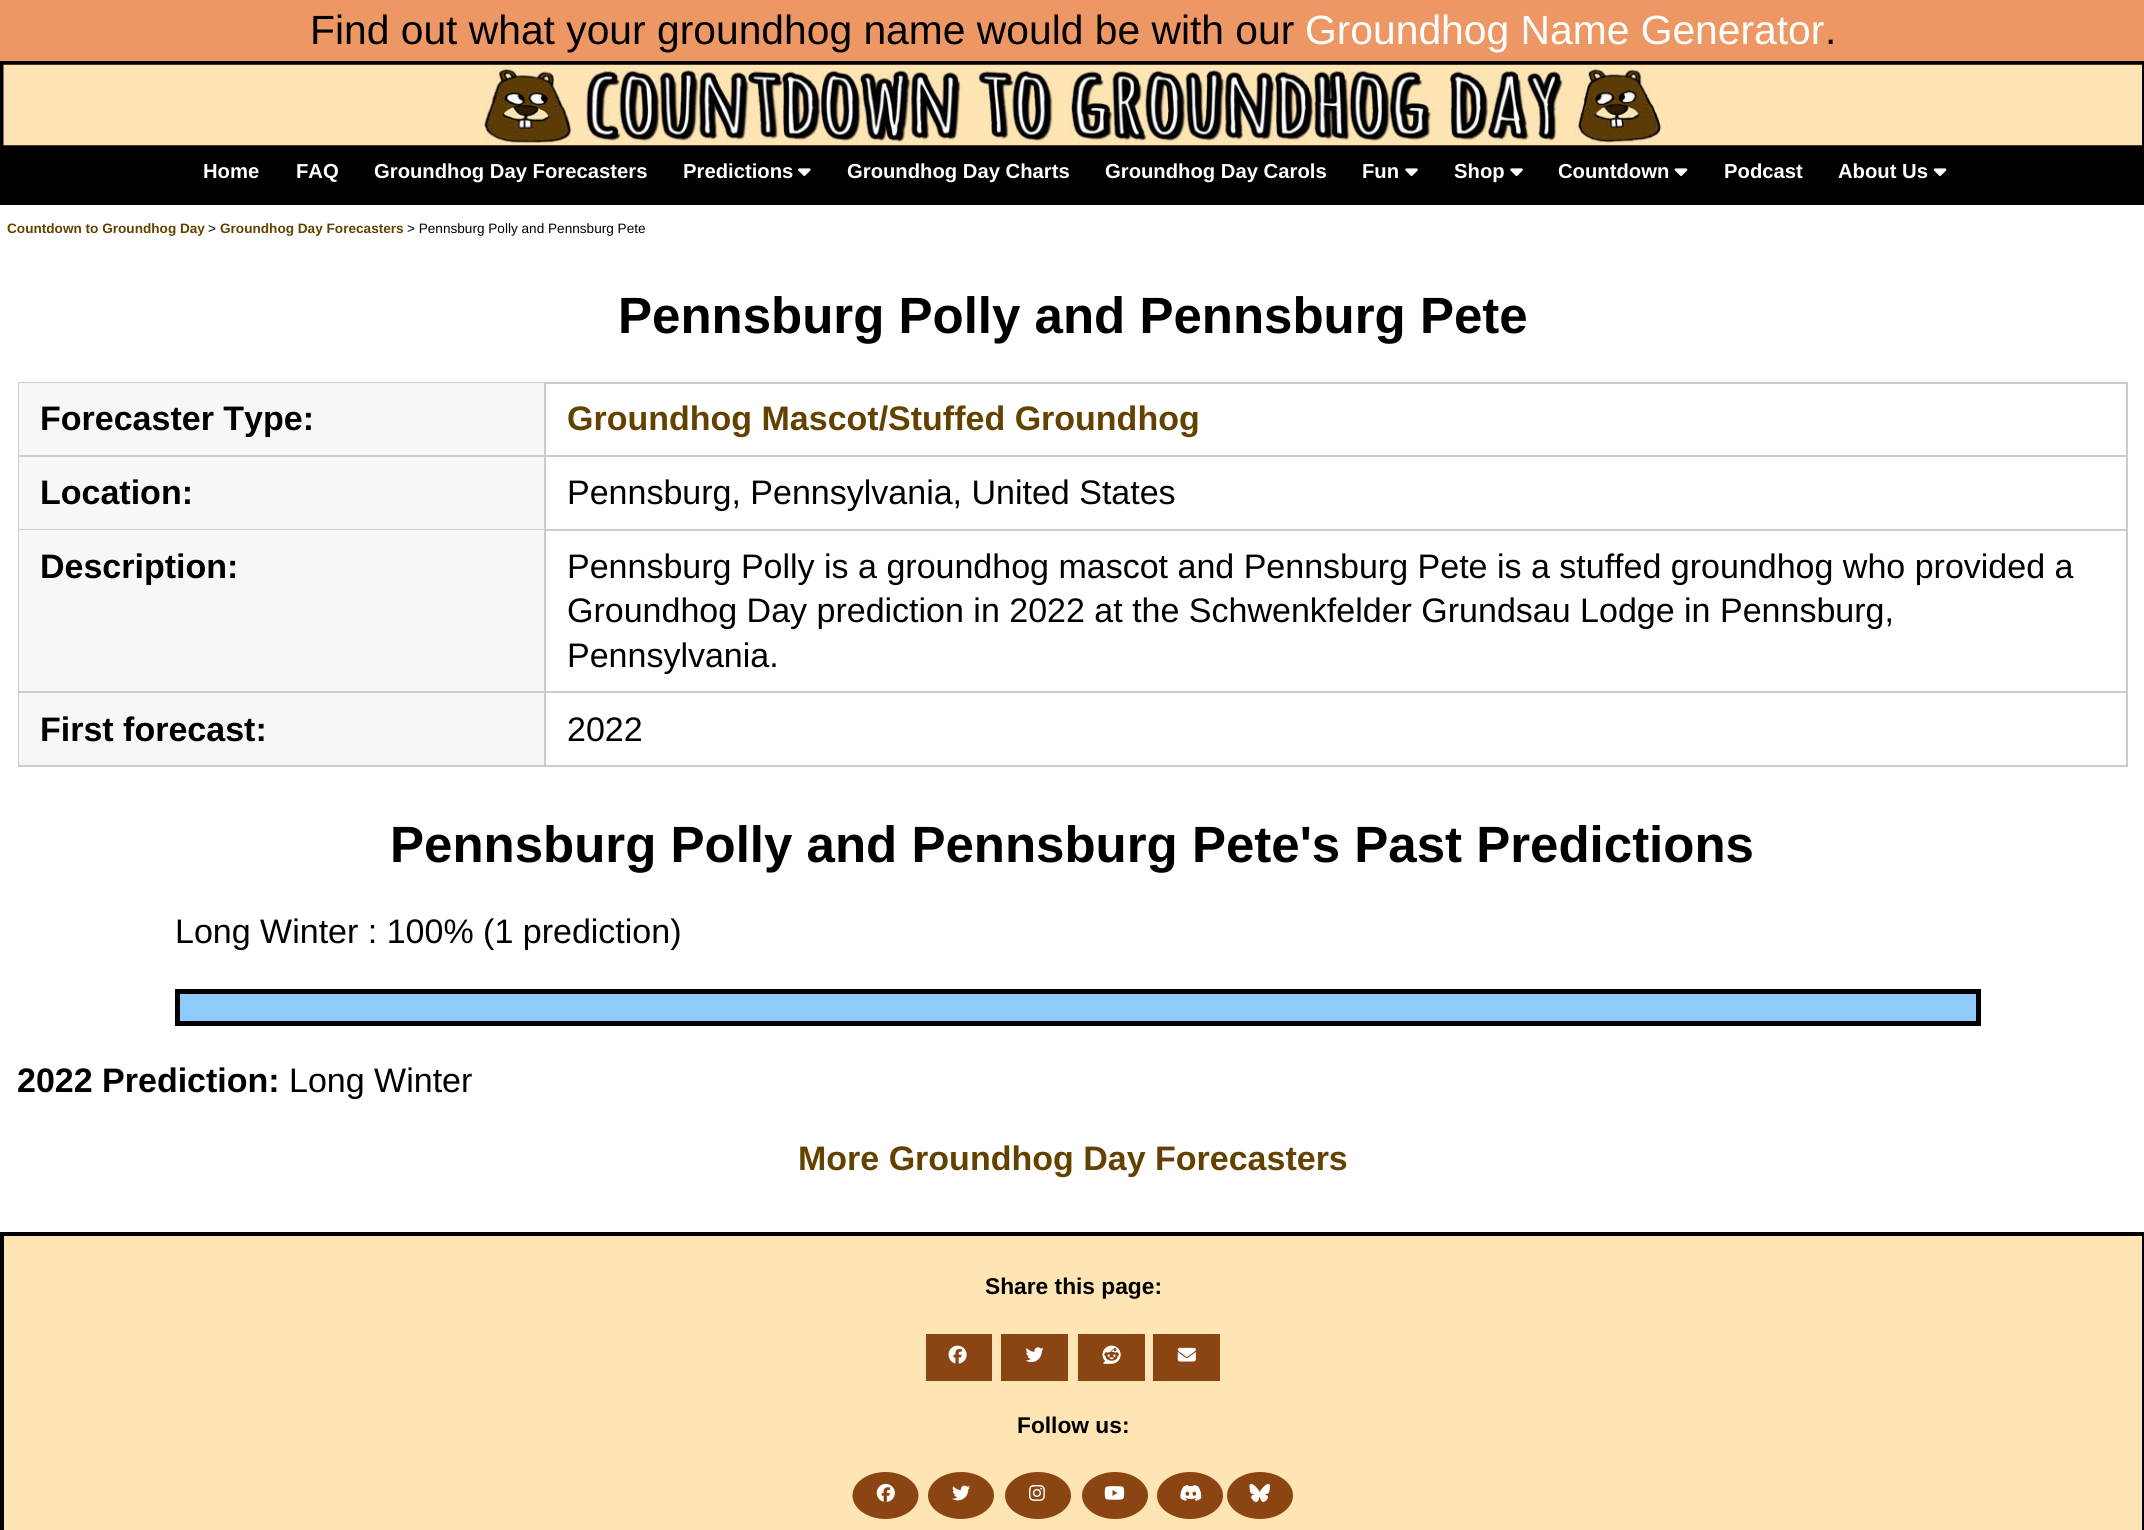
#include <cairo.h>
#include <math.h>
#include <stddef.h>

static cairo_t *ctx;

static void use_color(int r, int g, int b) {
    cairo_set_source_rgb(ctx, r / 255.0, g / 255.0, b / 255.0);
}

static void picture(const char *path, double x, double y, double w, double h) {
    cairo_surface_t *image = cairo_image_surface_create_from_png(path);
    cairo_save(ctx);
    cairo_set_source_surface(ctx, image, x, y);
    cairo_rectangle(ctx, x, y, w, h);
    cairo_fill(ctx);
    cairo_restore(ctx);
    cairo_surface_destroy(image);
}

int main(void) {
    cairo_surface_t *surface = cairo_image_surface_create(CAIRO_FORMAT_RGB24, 2144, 1530);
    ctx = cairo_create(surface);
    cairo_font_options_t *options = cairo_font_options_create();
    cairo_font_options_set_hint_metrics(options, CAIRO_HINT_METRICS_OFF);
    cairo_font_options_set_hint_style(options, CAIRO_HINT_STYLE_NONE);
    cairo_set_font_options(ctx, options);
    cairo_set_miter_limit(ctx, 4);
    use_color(255, 255, 255);
    cairo_paint(ctx);
    use_color(236, 151, 100);
    cairo_rectangle(ctx, 0, 0, 2144, 61);
    cairo_fill(ctx);
    cairo_select_font_face(ctx, "Liberation Sans", CAIRO_FONT_SLANT_NORMAL, CAIRO_FONT_WEIGHT_NORMAL);
    cairo_set_font_size(ctx, 40.8);
    use_color(0, 0, 0);
    cairo_move_to(ctx, 310, 44);
    cairo_show_text(ctx, "Find out what your groundhog name would be with our");
    use_color(255, 255, 255);
    cairo_move_to(ctx, 1305, 44);
    cairo_show_text(ctx, "Groundhog Name Generator");
    use_color(0, 0, 0);
    cairo_move_to(ctx, 1825, 44);
    cairo_show_text(ctx, ".");
    cairo_rectangle(ctx, 2, 63, 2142, 84);
    cairo_set_line_width(ctx, 4);
    cairo_stroke(ctx);
    picture("img1.png", 3, 64, 2139, 82);
    cairo_rectangle(ctx, 0, 149, 2144, 56);
    cairo_fill(ctx);
    cairo_select_font_face(ctx, "Liberation Sans", CAIRO_FONT_SLANT_NORMAL, CAIRO_FONT_WEIGHT_BOLD);
    cairo_set_font_size(ctx, 20.25);
    use_color(255, 255, 255);
    cairo_move_to(ctx, 203, 178);
    cairo_show_text(ctx, "Home");
    cairo_move_to(ctx, 296, 178);
    cairo_show_text(ctx, "FAQ");
    cairo_move_to(ctx, 374, 178);
    cairo_show_text(ctx, "Groundhog Day Forecasters");
    cairo_move_to(ctx, 683, 178);
    cairo_show_text(ctx, "Predictions");
    picture("img2.png", 798, 168, 13, 8);
    cairo_move_to(ctx, 847, 178);
    cairo_show_text(ctx, "Groundhog Day Charts");
    cairo_move_to(ctx, 1105, 178);
    cairo_show_text(ctx, "Groundhog Day Carols");
    cairo_move_to(ctx, 1362, 178);
    cairo_show_text(ctx, "Fun");
    picture("img3.png", 1405, 168, 13, 8);
    cairo_move_to(ctx, 1454, 178);
    cairo_show_text(ctx, "Shop");
    picture("img3.png", 1510, 168, 13, 8);
    cairo_move_to(ctx, 1558, 178);
    cairo_show_text(ctx, "Countdown");
    picture("img4.png", 1674, 168, 14, 8);
    cairo_move_to(ctx, 1724, 178);
    cairo_show_text(ctx, "Podcast");
    cairo_move_to(ctx, 1838, 178);
    cairo_show_text(ctx, "About Us");
    picture("img4.png", 1933, 168, 14, 8);
    cairo_set_font_size(ctx, 13.6);
    use_color(99, 66, 0);
    cairo_move_to(ctx, 7, 233);
    cairo_show_text(ctx, "Countdown to Groundhog Day");
    cairo_select_font_face(ctx, "Liberation Sans", CAIRO_FONT_SLANT_NORMAL, CAIRO_FONT_WEIGHT_NORMAL);
    use_color(0, 0, 0);
    cairo_move_to(ctx, 208, 233);
    cairo_show_text(ctx, ">");
    cairo_select_font_face(ctx, "Liberation Sans", CAIRO_FONT_SLANT_NORMAL, CAIRO_FONT_WEIGHT_BOLD);
    use_color(99, 66, 0);
    cairo_move_to(ctx, 220, 233);
    cairo_show_text(ctx, "Groundhog Day Forecasters");
    cairo_select_font_face(ctx, "Liberation Sans", CAIRO_FONT_SLANT_NORMAL, CAIRO_FONT_WEIGHT_NORMAL);
    use_color(0, 0, 0);
    cairo_move_to(ctx, 407, 233);
    cairo_show_text(ctx, "> Pennsburg Polly and Pennsburg Pete");
    cairo_select_font_face(ctx, "Liberation Sans", CAIRO_FONT_SLANT_NORMAL, CAIRO_FONT_WEIGHT_BOLD);
    cairo_set_font_size(ctx, 51);
    cairo_move_to(ctx, 618, 333);
    cairo_show_text(ctx, "Pennsburg Polly and Pennsburg Pete");
    cairo_rectangle(ctx, 19, 383, 2108, 383);
    use_color(204, 204, 204);
    cairo_set_line_width(ctx, 2);
    cairo_stroke(ctx);
    cairo_rectangle(ctx, 19, 455, 2107, 2);
    cairo_fill(ctx);
    use_color(247, 247, 247);
    cairo_rectangle(ctx, 19, 383, 525, 72);
    cairo_fill(ctx);
    use_color(204, 204, 204);
    cairo_rectangle(ctx, 544, 383, 2, 72);
    cairo_fill(ctx);
    cairo_set_font_size(ctx, 34);
    use_color(0, 0, 0);
    cairo_move_to(ctx, 40, 430);
    cairo_show_text(ctx, "Forecaster Type:");
    use_color(99, 66, 0);
    cairo_move_to(ctx, 567, 430);
    cairo_show_text(ctx, "Groundhog Mascot/Stuffed Groundhog");
    use_color(204, 204, 204);
    cairo_rectangle(ctx, 19, 529, 2107, 2);
    cairo_fill(ctx);
    use_color(247, 247, 247);
    cairo_rectangle(ctx, 19, 457, 525, 72);
    cairo_fill(ctx);
    use_color(204, 204, 204);
    cairo_rectangle(ctx, 544, 457, 2, 72);
    cairo_fill(ctx);
    use_color(0, 0, 0);
    cairo_move_to(ctx, 40, 504);
    cairo_show_text(ctx, "Location:");
    cairo_select_font_face(ctx, "Liberation Sans", CAIRO_FONT_SLANT_NORMAL, CAIRO_FONT_WEIGHT_NORMAL);
    cairo_move_to(ctx, 567, 504);
    cairo_show_text(ctx, "Pennsburg, Pennsylvania, United States");
    use_color(204, 204, 204);
    cairo_rectangle(ctx, 19, 691, 2107, 2);
    cairo_fill(ctx);
    use_color(247, 247, 247);
    cairo_rectangle(ctx, 19, 530, 525, 161);
    cairo_fill(ctx);
    use_color(204, 204, 204);
    cairo_rectangle(ctx, 544, 530, 2, 161);
    cairo_fill(ctx);
    cairo_select_font_face(ctx, "Liberation Sans", CAIRO_FONT_SLANT_NORMAL, CAIRO_FONT_WEIGHT_BOLD);
    use_color(0, 0, 0);
    cairo_move_to(ctx, 40, 578);
    cairo_show_text(ctx, "Description:");
    cairo_select_font_face(ctx, "Liberation Sans", CAIRO_FONT_SLANT_NORMAL, CAIRO_FONT_WEIGHT_NORMAL);
    cairo_move_to(ctx, 567, 578);
    cairo_show_text(ctx, "Pennsburg Polly is a groundhog mascot and Pennsburg Pete is a stuffed groundhog who provided a");
    cairo_move_to(ctx, 567, 622);
    cairo_show_text(ctx, "Groundhog Day prediction in 2022 at the Schwenkfelder Grundsau Lodge in Pennsburg,");
    cairo_move_to(ctx, 567, 667);
    cairo_show_text(ctx, "Pennsylvania.");
    use_color(247, 247, 247);
    cairo_rectangle(ctx, 19, 693, 525, 72);
    cairo_fill(ctx);
    use_color(204, 204, 204);
    cairo_rectangle(ctx, 544, 693, 2, 72);
    cairo_fill(ctx);
    cairo_select_font_face(ctx, "Liberation Sans", CAIRO_FONT_SLANT_NORMAL, CAIRO_FONT_WEIGHT_BOLD);
    use_color(0, 0, 0);
    cairo_move_to(ctx, 40, 741);
    cairo_show_text(ctx, "First forecast:");
    cairo_select_font_face(ctx, "Liberation Sans", CAIRO_FONT_SLANT_NORMAL, CAIRO_FONT_WEIGHT_NORMAL);
    cairo_move_to(ctx, 567, 741);
    cairo_show_text(ctx, "2022");
    cairo_select_font_face(ctx, "Liberation Sans", CAIRO_FONT_SLANT_NORMAL, CAIRO_FONT_WEIGHT_BOLD);
    cairo_set_font_size(ctx, 51);
    cairo_move_to(ctx, 390, 862);
    cairo_show_text(ctx, "Pennsburg Polly and Pennsburg Pete's Past Predictions");
    cairo_select_font_face(ctx, "Liberation Sans", CAIRO_FONT_SLANT_NORMAL, CAIRO_FONT_WEIGHT_NORMAL);
    cairo_set_font_size(ctx, 34);
    cairo_move_to(ctx, 175, 943);
    cairo_show_text(ctx, "Long Winter : 100% (1 prediction)");
    use_color(142, 202, 251);
    cairo_rectangle(ctx, 177.5, 991.5, 1801, 32);
    cairo_fill_preserve(ctx);
    use_color(0, 0, 0);
    cairo_set_line_width(ctx, 5);
    cairo_stroke(ctx);
    cairo_select_font_face(ctx, "Liberation Sans", CAIRO_FONT_SLANT_NORMAL, CAIRO_FONT_WEIGHT_BOLD);
    cairo_move_to(ctx, 17, 1092);
    cairo_show_text(ctx, "2022 Prediction:");
    cairo_select_font_face(ctx, "Liberation Sans", CAIRO_FONT_SLANT_NORMAL, CAIRO_FONT_WEIGHT_NORMAL);
    cairo_move_to(ctx, 289, 1092);
    cairo_show_text(ctx, "Long Winter");
    cairo_select_font_face(ctx, "Liberation Sans", CAIRO_FONT_SLANT_NORMAL, CAIRO_FONT_WEIGHT_BOLD);
    use_color(99, 66, 0);
    cairo_move_to(ctx, 798, 1170);
    cairo_show_text(ctx, "More Groundhog Day Forecasters");
    use_color(255, 229, 179);
    cairo_rectangle(ctx, 2, 1234, 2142, 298);
    cairo_fill_preserve(ctx);
    use_color(0, 0, 0);
    cairo_set_line_width(ctx, 4);
    cairo_stroke(ctx);
    cairo_set_font_size(ctx, 22.75);
    cairo_move_to(ctx, 985, 1294);
    cairo_show_text(ctx, "Share this page:");
    use_color(139, 69, 19);
    cairo_rectangle(ctx, 926, 1334, 66, 47);
    cairo_fill(ctx);
    picture("img5.png", 948, 1345, 19, 19);
    cairo_rectangle(ctx, 1001, 1334, 67, 47);
    cairo_fill(ctx);
    picture("img6.png", 1025, 1347, 19, 16);
    cairo_rectangle(ctx, 1078, 1334, 67, 47);
    cairo_fill(ctx);
    picture("img7.png", 1102, 1345, 19, 19);
    cairo_rectangle(ctx, 1153, 1334, 67, 47);
    cairo_fill(ctx);
    picture("img8.png", 1177, 1347, 19, 15);
    use_color(0, 0, 0);
    cairo_move_to(ctx, 1017, 1433);
    cairo_show_text(ctx, "Follow us:");
    use_color(139, 69, 19);
    cairo_new_path(ctx);
    cairo_move_to(ctx, 885.5, 1472);
    cairo_curve_to(ctx, 903.5, 1472, 918.5, 1482.5, 918.5, 1495.5);
    cairo_curve_to(ctx, 918.5, 1508.5, 903.5, 1519, 885.5, 1519);
    cairo_curve_to(ctx, 867.5, 1519, 852.5, 1508.5, 852.5, 1495.5);
    cairo_curve_to(ctx, 852.5, 1482.5, 867.5, 1472, 885.5, 1472);
    cairo_close_path(ctx);
    cairo_fill(ctx);
    picture("img9.png", 876, 1483, 19, 19);
    cairo_new_path(ctx);
    cairo_move_to(ctx, 961, 1472);
    cairo_curve_to(ctx, 979, 1472, 994, 1482.5, 994, 1495.5);
    cairo_curve_to(ctx, 994, 1508.5, 979, 1519, 961, 1519);
    cairo_curve_to(ctx, 943, 1519, 928, 1508.5, 928, 1495.5);
    cairo_curve_to(ctx, 928, 1482.5, 943, 1472, 961, 1472);
    cairo_close_path(ctx);
    cairo_fill(ctx);
    picture("img10.png", 952, 1485, 18, 16);
    cairo_new_path(ctx);
    cairo_move_to(ctx, 1038, 1472);
    cairo_curve_to(ctx, 1056, 1472, 1071, 1482.5, 1071, 1495.5);
    cairo_curve_to(ctx, 1071, 1508.5, 1056, 1519, 1038, 1519);
    cairo_curve_to(ctx, 1020, 1519, 1005, 1508.5, 1005, 1495.5);
    cairo_curve_to(ctx, 1005, 1482.5, 1020, 1472, 1038, 1472);
    cairo_close_path(ctx);
    cairo_fill(ctx);
    picture("img11.png", 1029, 1485, 16, 16);
    cairo_new_path(ctx);
    cairo_move_to(ctx, 1115, 1472);
    cairo_curve_to(ctx, 1133, 1472, 1148, 1482.5, 1148, 1495.5);
    cairo_curve_to(ctx, 1148, 1508.5, 1133, 1519, 1115, 1519);
    cairo_curve_to(ctx, 1097, 1519, 1082, 1508.5, 1082, 1495.5);
    cairo_curve_to(ctx, 1082, 1482.5, 1097, 1472, 1115, 1472);
    cairo_close_path(ctx);
    cairo_fill(ctx);
    picture("img12.png", 1104, 1486, 21, 14);
    cairo_new_path(ctx);
    cairo_move_to(ctx, 1190, 1472);
    cairo_curve_to(ctx, 1208, 1472, 1223, 1482.5, 1223, 1495.5);
    cairo_curve_to(ctx, 1223, 1508.5, 1208, 1519, 1190, 1519);
    cairo_curve_to(ctx, 1172, 1519, 1157, 1508.5, 1157, 1495.5);
    cairo_curve_to(ctx, 1157, 1482.5, 1172, 1472, 1190, 1472);
    cairo_close_path(ctx);
    cairo_fill(ctx);
    picture("img13.png", 1180, 1485, 22, 16);
    cairo_new_path(ctx);
    cairo_move_to(ctx, 1260, 1472);
    cairo_curve_to(ctx, 1278, 1472, 1293, 1482.5, 1293, 1495.5);
    cairo_curve_to(ctx, 1293, 1508.5, 1278, 1519, 1260, 1519);
    cairo_curve_to(ctx, 1242, 1519, 1227, 1508.5, 1227, 1495.5);
    cairo_curve_to(ctx, 1227, 1482.5, 1242, 1472, 1260, 1472);
    cairo_close_path(ctx);
    cairo_fill(ctx);
    picture("img14.png", 1249, 1483, 21, 19);
    cairo_surface_write_to_png(surface, "result.png");
    cairo_font_options_destroy(options);
    cairo_destroy(ctx);
    cairo_surface_destroy(surface);
    return 0;
}
